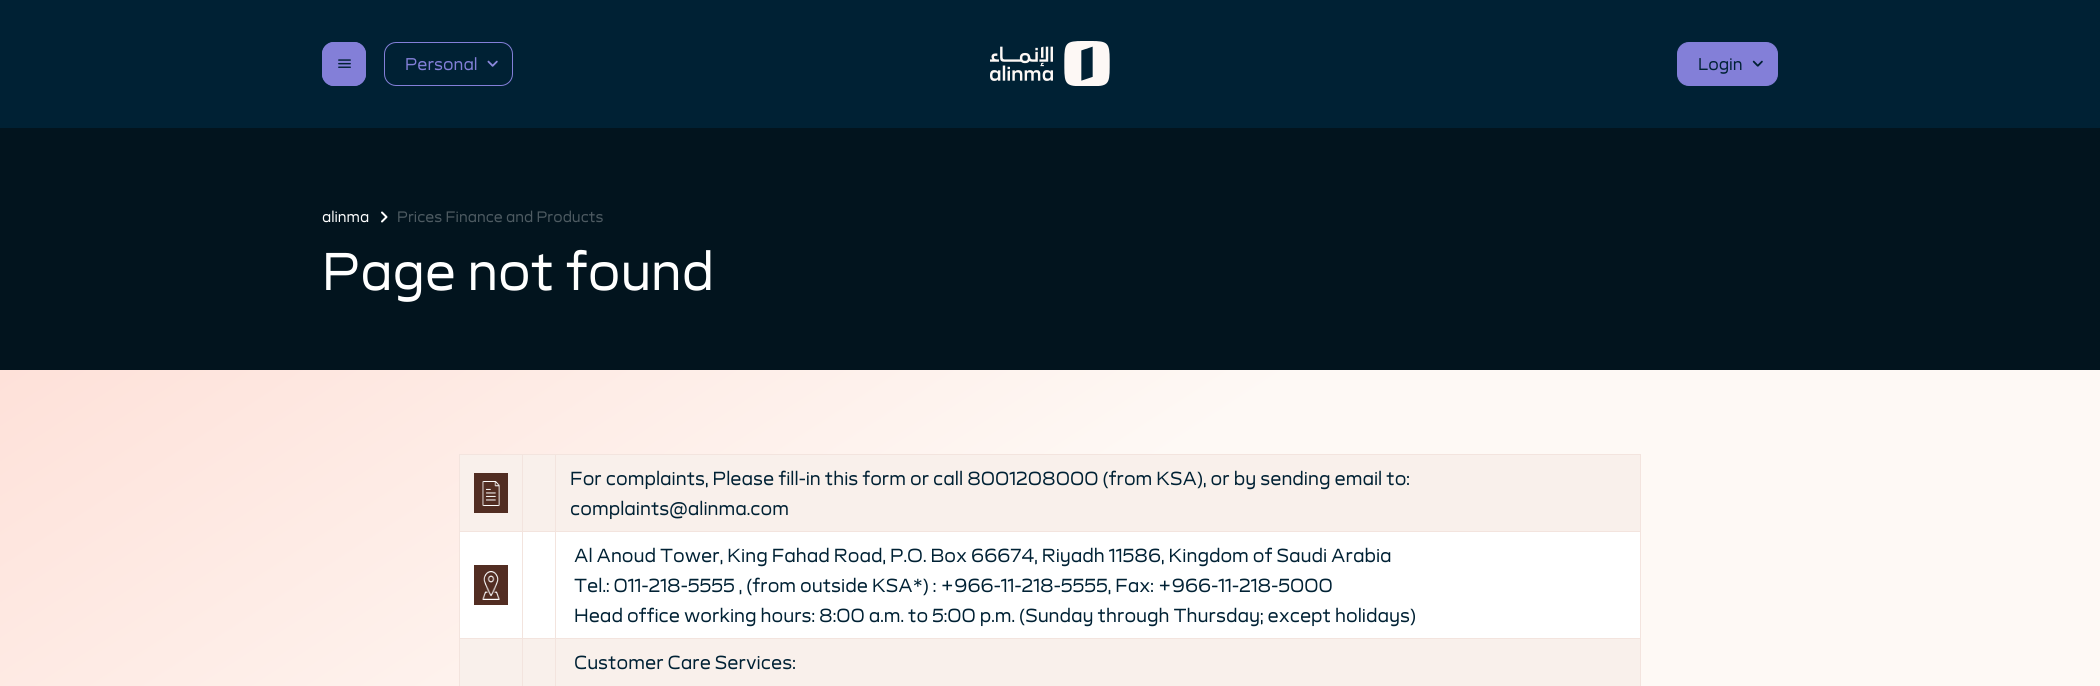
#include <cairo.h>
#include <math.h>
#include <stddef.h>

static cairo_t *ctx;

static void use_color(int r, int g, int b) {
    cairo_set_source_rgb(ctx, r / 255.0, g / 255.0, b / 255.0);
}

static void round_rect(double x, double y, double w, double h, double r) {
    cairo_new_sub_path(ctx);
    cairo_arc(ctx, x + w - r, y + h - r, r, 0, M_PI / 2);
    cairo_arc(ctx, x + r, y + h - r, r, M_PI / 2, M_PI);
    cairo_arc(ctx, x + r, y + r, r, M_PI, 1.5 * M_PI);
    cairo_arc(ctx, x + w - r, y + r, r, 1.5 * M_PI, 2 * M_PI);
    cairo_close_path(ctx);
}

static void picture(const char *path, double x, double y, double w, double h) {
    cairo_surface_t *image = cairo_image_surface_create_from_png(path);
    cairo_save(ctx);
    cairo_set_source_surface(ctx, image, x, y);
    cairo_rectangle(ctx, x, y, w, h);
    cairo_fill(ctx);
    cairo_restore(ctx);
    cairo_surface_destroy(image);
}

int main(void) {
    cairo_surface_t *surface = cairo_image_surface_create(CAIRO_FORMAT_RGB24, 2100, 686);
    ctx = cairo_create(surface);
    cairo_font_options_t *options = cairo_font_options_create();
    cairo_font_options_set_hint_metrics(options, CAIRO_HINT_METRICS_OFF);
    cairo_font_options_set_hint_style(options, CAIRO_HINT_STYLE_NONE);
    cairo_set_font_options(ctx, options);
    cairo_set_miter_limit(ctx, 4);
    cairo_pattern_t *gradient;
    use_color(2, 20, 30);
    cairo_paint(ctx);
    use_color(0, 33, 52);
    cairo_rectangle(ctx, 0, 0, 2100, 128);
    cairo_fill(ctx);
    use_color(131, 127, 216);
    round_rect(322, 42, 44, 44, 12);
    cairo_fill(ctx);
    picture("img1.png", 338, 59, 13, 9);
    round_rect(322.5, 42.5, 43, 43, 11.5);
    cairo_set_line_width(ctx, 1);
    cairo_stroke(ctx);
    round_rect(384.5, 42.5, 128, 43, 11.5);
    cairo_stroke(ctx);
    cairo_select_font_face(ctx, "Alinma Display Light", CAIRO_FONT_SLANT_NORMAL, CAIRO_FONT_WEIGHT_NORMAL);
    cairo_set_font_size(ctx, 18);
    cairo_move_to(ctx, 405, 70);
    cairo_show_text(ctx, "Personal");
    picture("img2.png", 487, 60, 11, 7);
    picture("img3.png", 990, 41, 120, 45);
    round_rect(1677.5, 42.5, 100, 43, 11.5);
    cairo_fill_preserve(ctx);
    cairo_stroke(ctx);
    use_color(0, 33, 52);
    cairo_move_to(ctx, 1698, 70);
    cairo_show_text(ctx, "Login");
    picture("img4.png", 1752, 60, 11, 7);
    cairo_set_font_size(ctx, 16);
    use_color(255, 255, 255);
    cairo_move_to(ctx, 322, 222);
    cairo_show_text(ctx, "alinma");
    cairo_new_path(ctx);
    cairo_move_to(ctx, 382, 221.5);
    cairo_line_to(ctx, 386.5, 217);
    cairo_line_to(ctx, 382, 212.5);
    cairo_set_line_width(ctx, 2);
    cairo_set_line_cap(ctx, CAIRO_LINE_CAP_ROUND);
    cairo_set_line_join(ctx, CAIRO_LINE_JOIN_ROUND);
    cairo_stroke(ctx);
    use_color(78, 91, 98);
    cairo_move_to(ctx, 397, 222);
    cairo_show_text(ctx, "Prices Finance and Products");
    cairo_set_font_size(ctx, 56);
    use_color(255, 255, 255);
    cairo_move_to(ctx, 322, 290);
    cairo_show_text(ctx, "Page not found");
    gradient = cairo_pattern_create_linear(567, 1.6, 1533, 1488);
    cairo_pattern_add_color_stop_rgba(gradient, 0, 0.996, 0.882, 0.851, 1);
    cairo_pattern_add_color_stop_rgba(gradient, 0.4, 0.996, 0.976, 0.961, 1);
    cairo_pattern_add_color_stop_rgba(gradient, 1, 0.996, 0.976, 0.961, 1);
    cairo_set_source(ctx, gradient);
    cairo_pattern_destroy(gradient);
    cairo_rectangle(ctx, 0, 370, 2100, 316);
    cairo_fill(ctx);
    use_color(249, 240, 235);
    cairo_rectangle(ctx, 460, 455, 62, 76);
    cairo_fill(ctx);
    use_color(243, 228, 222);
    cairo_rectangle(ctx, 555, 454, 1086, 1);
    cairo_fill(ctx);
    cairo_rectangle(ctx, 555, 531, 1086, 1);
    cairo_fill(ctx);
    cairo_rectangle(ctx, 555, 638, 1086, 1);
    cairo_fill(ctx);
    cairo_rectangle(ctx, 555, 638, 1, 48);
    cairo_fill(ctx);
    cairo_rectangle(ctx, 522, 638, 34, 1);
    cairo_fill(ctx);
    cairo_rectangle(ctx, 555, 531, 1, 108);
    cairo_fill(ctx);
    cairo_rectangle(ctx, 522, 531, 34, 1);
    cairo_fill(ctx);
    cairo_rectangle(ctx, 555, 454, 1, 78);
    cairo_fill(ctx);
    cairo_rectangle(ctx, 522, 454, 34, 1);
    cairo_fill(ctx);
    cairo_rectangle(ctx, 522, 638, 1, 48);
    cairo_fill(ctx);
    cairo_rectangle(ctx, 459, 638, 64, 1);
    cairo_fill(ctx);
    cairo_rectangle(ctx, 522, 531, 1, 108);
    cairo_fill(ctx);
    cairo_rectangle(ctx, 459, 531, 64, 1);
    cairo_fill(ctx);
    cairo_rectangle(ctx, 522, 454, 1, 78);
    cairo_fill(ctx);
    cairo_rectangle(ctx, 459, 454, 64, 1);
    cairo_fill(ctx);
    cairo_rectangle(ctx, 459, 638, 1, 48);
    cairo_fill(ctx);
    cairo_rectangle(ctx, 459, 531, 1, 108);
    cairo_fill(ctx);
    cairo_rectangle(ctx, 459, 454, 1, 78);
    cairo_fill(ctx);
    picture("img5.png", 474, 473, 34, 40);
    use_color(249, 240, 235);
    cairo_rectangle(ctx, 523, 455, 32, 76);
    cairo_fill(ctx);
    cairo_rectangle(ctx, 556, 455, 1084, 76);
    cairo_fill(ctx);
    use_color(243, 228, 222);
    cairo_rectangle(ctx, 1640, 638, 1, 48);
    cairo_fill(ctx);
    cairo_rectangle(ctx, 1640, 531, 1, 108);
    cairo_fill(ctx);
    cairo_rectangle(ctx, 1640, 454, 1, 78);
    cairo_fill(ctx);
    cairo_set_font_size(ctx, 20);
    use_color(0, 33, 52);
    cairo_move_to(ctx, 570, 485);
    cairo_show_text(ctx, "For complaints, Please fill-in this form or call 8001208000 (from KSA), or by sending email to:");
    cairo_move_to(ctx, 570, 515);
    cairo_show_text(ctx, "complaints@alinma.com");
    use_color(255, 255, 255);
    cairo_rectangle(ctx, 460, 532, 62, 106);
    cairo_fill(ctx);
    picture("img6.png", 474, 565, 34, 40);
    cairo_rectangle(ctx, 523, 532, 32, 106);
    cairo_fill(ctx);
    cairo_rectangle(ctx, 556, 532, 1084, 106);
    cairo_fill(ctx);
    use_color(0, 33, 52);
    cairo_move_to(ctx, 574, 562);
    cairo_show_text(ctx, "Al Anoud Tower, King Fahad Road, P.O. Box 66674, Riyadh 11586, Kingdom of Saudi Arabia");
    cairo_move_to(ctx, 574, 592);
    cairo_show_text(ctx, "Tel.: 011-218-5555 , (from outside KSA*) : +966-11-218-5555, Fax: +966-11-218-5000");
    cairo_move_to(ctx, 574, 622);
    cairo_show_text(ctx, "Head office working hours: 8:00 a.m. to 5:00 p.m. (Sunday through Thursday; except holidays)");
    use_color(249, 240, 235);
    cairo_rectangle(ctx, 460, 639, 62, 47);
    cairo_fill(ctx);
    cairo_rectangle(ctx, 523, 639, 32, 47);
    cairo_fill(ctx);
    cairo_rectangle(ctx, 556, 639, 1084, 47);
    cairo_fill(ctx);
    use_color(0, 33, 52);
    cairo_move_to(ctx, 574, 669);
    cairo_show_text(ctx, "Customer Care Services:");
    cairo_surface_write_to_png(surface, "result.png");
    cairo_font_options_destroy(options);
    cairo_destroy(ctx);
    cairo_surface_destroy(surface);
    return 0;
}
